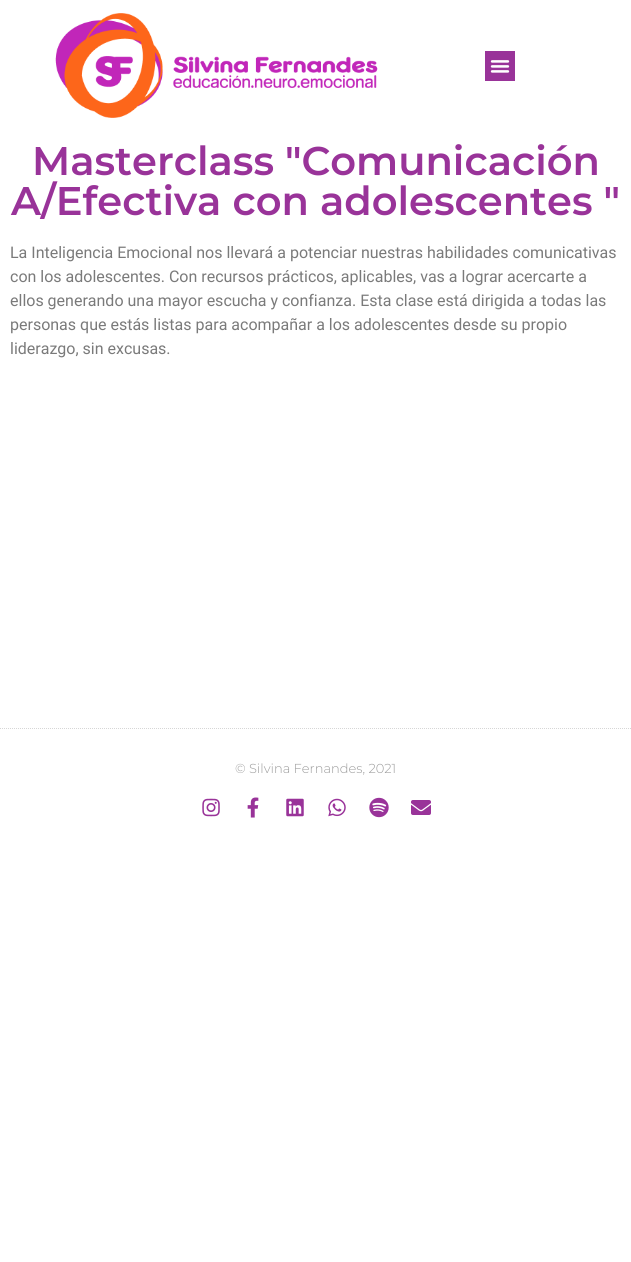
#include <cairo.h>
#include <math.h>
#include <stddef.h>

static cairo_t *ctx;

static void use_color(int r, int g, int b) {
    cairo_set_source_rgb(ctx, r / 255.0, g / 255.0, b / 255.0);
}

static void picture(const char *path, double x, double y, double w, double h) {
    cairo_surface_t *image = cairo_image_surface_create_from_png(path);
    cairo_save(ctx);
    cairo_set_source_surface(ctx, image, x, y);
    cairo_rectangle(ctx, x, y, w, h);
    cairo_fill(ctx);
    cairo_restore(ctx);
    cairo_surface_destroy(image);
}

int main(void) {
    cairo_surface_t *surface = cairo_image_surface_create(CAIRO_FORMAT_RGB24, 631, 1262);
    ctx = cairo_create(surface);
    cairo_font_options_t *options = cairo_font_options_create();
    cairo_font_options_set_hint_metrics(options, CAIRO_HINT_METRICS_OFF);
    cairo_font_options_set_hint_style(options, CAIRO_HINT_STYLE_NONE);
    cairo_set_font_options(ctx, options);
    cairo_set_miter_limit(ctx, 4);
    use_color(255, 255, 255);
    cairo_paint(ctx);
    picture("img1.png", 55, 13, 323, 105);
    use_color(153, 51, 153);
    cairo_rectangle(ctx, 485, 51, 30, 30);
    cairo_fill(ctx);
    picture("img2.png", 490, 60, 20, 13);
    cairo_select_font_face(ctx, "Montserrat SemiBold", CAIRO_FONT_SLANT_NORMAL, CAIRO_FONT_WEIGHT_NORMAL);
    cairo_set_font_size(ctx, 40);
    cairo_move_to(ctx, 32, 175);
    cairo_show_text(ctx, "Masterclass \"Comunicación");
    cairo_move_to(ctx, 11, 215);
    cairo_show_text(ctx, "A/Efectiva con adolescentes \"");
    cairo_select_font_face(ctx, "Roboto", CAIRO_FONT_SLANT_NORMAL, CAIRO_FONT_WEIGHT_NORMAL);
    cairo_set_font_size(ctx, 16);
    use_color(122, 122, 122);
    cairo_move_to(ctx, 10, 258);
    cairo_show_text(ctx, "La Inteligencia Emocional nos llevará a potenciar nuestras habilidades comunicativas");
    cairo_move_to(ctx, 10, 282);
    cairo_show_text(ctx, "con los adolescentes. Con recursos prácticos, aplicables, vas a lograr acercarte a");
    cairo_move_to(ctx, 10, 306);
    cairo_show_text(ctx, "ellos generando una mayor escucha y confianza. Esta clase está dirigida a todas las");
    cairo_move_to(ctx, 10, 330);
    cairo_show_text(ctx, "personas que estás listas para acompañar a los adolescentes desde su propio");
    cairo_move_to(ctx, 10, 354);
    cairo_show_text(ctx, "liderazgo, sin excusas.");
    cairo_new_path(ctx);
    cairo_move_to(ctx, 0, 728.5);
    cairo_line_to(ctx, 631, 728.5);
    use_color(214, 214, 214);
    cairo_set_line_width(ctx, 1);
    cairo_set_dash(ctx, (double[]){1, 1}, 2, 0);
    cairo_stroke(ctx);
    cairo_select_font_face(ctx, "Montserrat Light", CAIRO_FONT_SLANT_NORMAL, CAIRO_FONT_WEIGHT_NORMAL);
    cairo_set_font_size(ctx, 13);
    use_color(156, 156, 156);
    cairo_move_to(ctx, 235, 773);
    cairo_show_text(ctx, "© Silvina Fernandes, 2021");
    picture("img3.png", 202, 798, 18, 19);
    picture("img4.png", 247, 797, 12, 21);
    picture("img5.png", 286, 798, 18, 19);
    picture("img6.png", 328, 798, 18, 19);
    picture("img7.png", 369, 797, 20, 21);
    picture("img8.png", 411, 800, 20, 15);
    cairo_surface_write_to_png(surface, "result.png");
    cairo_font_options_destroy(options);
    cairo_destroy(ctx);
    cairo_surface_destroy(surface);
    return 0;
}
